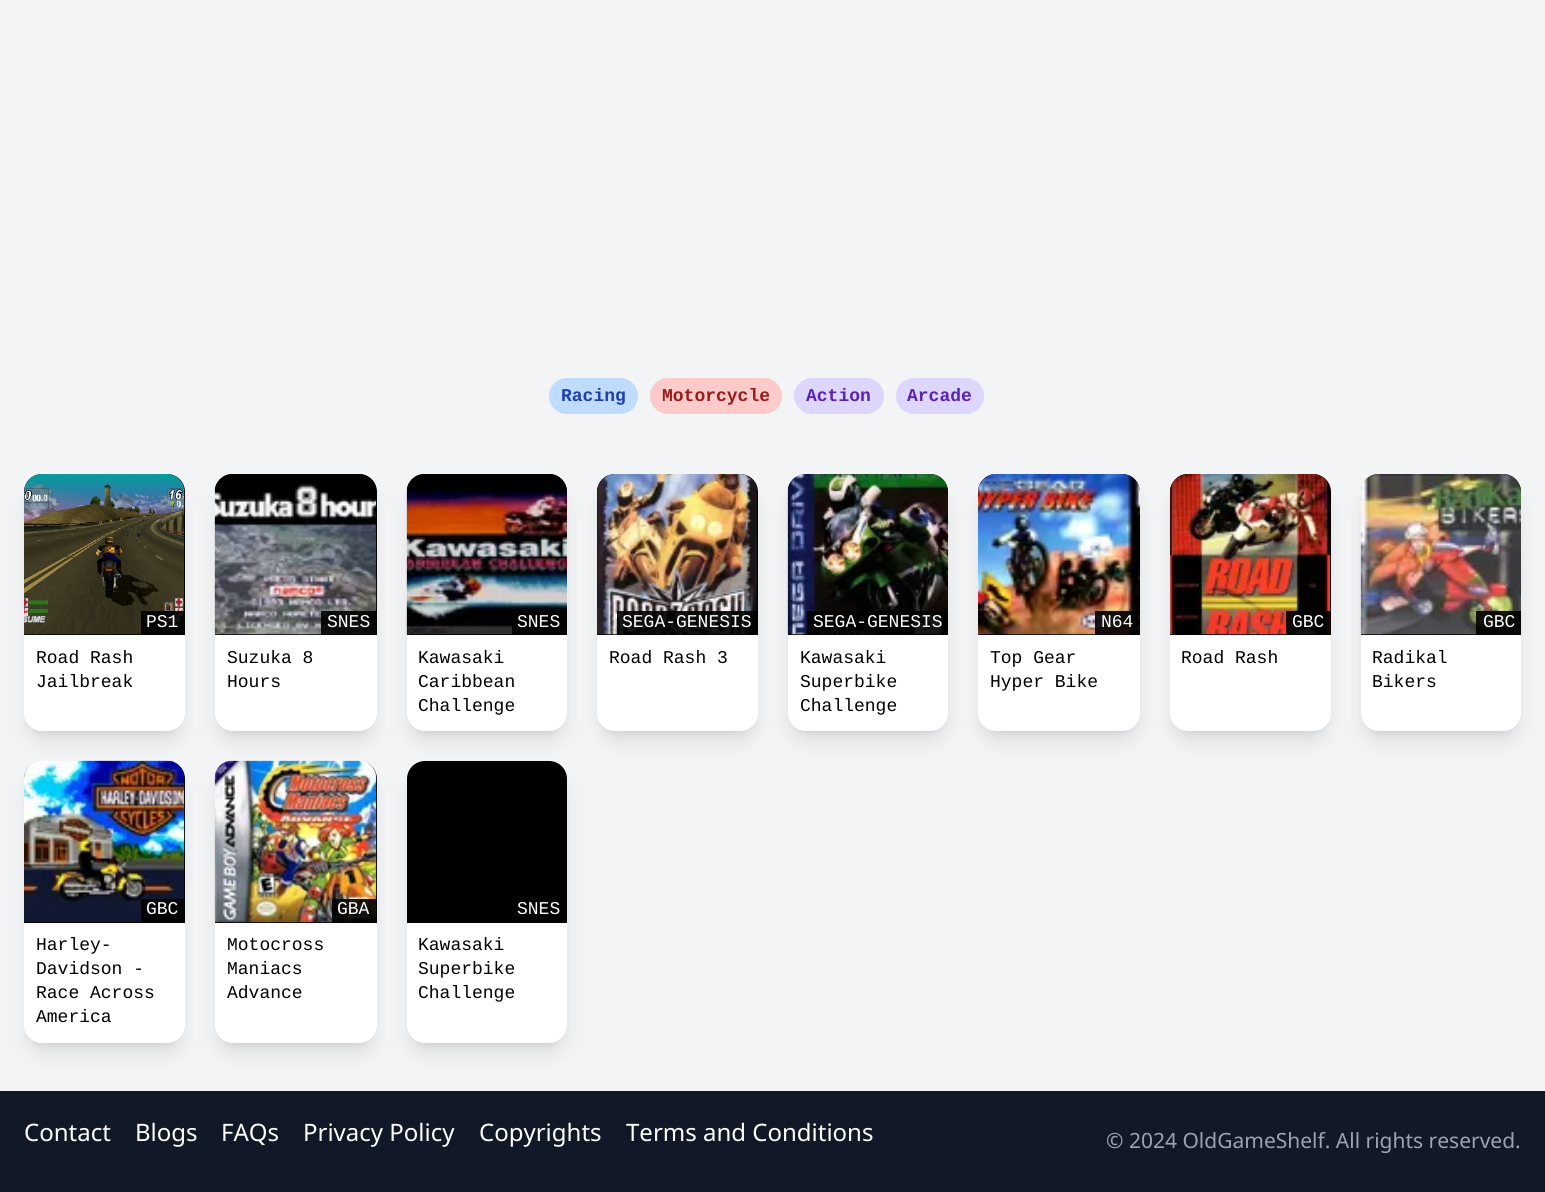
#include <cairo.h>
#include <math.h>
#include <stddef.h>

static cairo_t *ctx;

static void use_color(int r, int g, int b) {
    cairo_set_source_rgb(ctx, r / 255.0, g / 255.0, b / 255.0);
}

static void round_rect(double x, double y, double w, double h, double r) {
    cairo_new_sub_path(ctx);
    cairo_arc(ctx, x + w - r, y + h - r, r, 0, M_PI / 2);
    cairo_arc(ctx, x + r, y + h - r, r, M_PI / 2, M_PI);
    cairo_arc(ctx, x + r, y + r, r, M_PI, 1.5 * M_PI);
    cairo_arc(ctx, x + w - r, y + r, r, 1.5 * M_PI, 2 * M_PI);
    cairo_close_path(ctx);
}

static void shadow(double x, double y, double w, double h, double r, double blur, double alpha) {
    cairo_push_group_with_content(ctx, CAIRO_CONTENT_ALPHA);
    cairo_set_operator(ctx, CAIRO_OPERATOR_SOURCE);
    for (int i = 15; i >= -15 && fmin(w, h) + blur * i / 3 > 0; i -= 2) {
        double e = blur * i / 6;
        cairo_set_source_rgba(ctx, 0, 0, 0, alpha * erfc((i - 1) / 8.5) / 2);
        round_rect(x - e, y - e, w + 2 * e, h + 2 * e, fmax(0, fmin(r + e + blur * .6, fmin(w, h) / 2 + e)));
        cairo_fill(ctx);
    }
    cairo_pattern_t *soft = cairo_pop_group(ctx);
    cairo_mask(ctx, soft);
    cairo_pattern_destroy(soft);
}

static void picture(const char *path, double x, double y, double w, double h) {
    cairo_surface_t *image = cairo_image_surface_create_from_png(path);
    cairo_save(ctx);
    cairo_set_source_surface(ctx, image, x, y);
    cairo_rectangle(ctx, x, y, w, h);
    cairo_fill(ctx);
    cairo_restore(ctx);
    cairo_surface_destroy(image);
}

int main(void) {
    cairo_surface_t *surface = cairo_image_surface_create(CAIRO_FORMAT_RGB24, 1545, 1192);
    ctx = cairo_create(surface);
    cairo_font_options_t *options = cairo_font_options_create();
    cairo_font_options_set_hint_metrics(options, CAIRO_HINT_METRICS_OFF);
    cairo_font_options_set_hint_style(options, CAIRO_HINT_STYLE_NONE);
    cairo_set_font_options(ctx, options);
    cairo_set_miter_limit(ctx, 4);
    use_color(243, 244, 246);
    cairo_paint(ctx);
    use_color(191, 219, 254);
    round_rect(549, 378, 89, 36, 18);
    cairo_fill(ctx);
    cairo_select_font_face(ctx, "Liberation Mono", CAIRO_FONT_SLANT_NORMAL, CAIRO_FONT_WEIGHT_BOLD);
    cairo_set_font_size(ctx, 18);
    use_color(30, 64, 175);
    cairo_move_to(ctx, 561, 401);
    cairo_show_text(ctx, "Racing");
    use_color(254, 202, 202);
    round_rect(650, 378, 132, 36, 18);
    cairo_fill(ctx);
    use_color(153, 27, 27);
    cairo_move_to(ctx, 662, 401);
    cairo_show_text(ctx, "Motorcycle");
    use_color(221, 214, 254);
    round_rect(794, 378, 90, 36, 18);
    cairo_fill(ctx);
    use_color(91, 33, 182);
    cairo_move_to(ctx, 806, 401);
    cairo_show_text(ctx, "Action");
    use_color(221, 214, 254);
    round_rect(896, 378, 88, 36, 18);
    cairo_fill(ctx);
    use_color(91, 33, 182);
    cairo_move_to(ctx, 907, 401);
    cairo_show_text(ctx, "Arcade");
    use_color(0, 0, 0);
    shadow(30, 486, 149, 245, 12, 4.5, 0.1);
    shadow(29, 494, 151, 247, 14, 11, 0.1);
    use_color(255, 255, 255);
    round_rect(24, 474, 161, 257, 18);
    cairo_fill(ctx);
    use_color(0, 0, 0);
    cairo_new_path(ctx);
    cairo_move_to(ctx, 42, 474);
    cairo_line_to(ctx, 167, 474);
    cairo_curve_to(ctx, 177, 474, 185, 482, 185, 492);
    cairo_line_to(ctx, 185, 635);
    cairo_line_to(ctx, 24, 635);
    cairo_line_to(ctx, 24, 492);
    cairo_curve_to(ctx, 24, 482, 32, 474, 42, 474);
    cairo_close_path(ctx);
    cairo_fill(ctx);
    picture("img1.png", 24, 474, 161, 161);
    cairo_set_source_rgba(ctx, 0, 0, 0, 0.9);
    cairo_rectangle(ctx, 141, 611, 44, 24);
    cairo_fill(ctx);
    cairo_select_font_face(ctx, "Liberation Mono", CAIRO_FONT_SLANT_NORMAL, CAIRO_FONT_WEIGHT_NORMAL);
    use_color(255, 255, 255);
    cairo_move_to(ctx, 146, 627);
    cairo_show_text(ctx, "PS1");
    use_color(0, 0, 0);
    cairo_move_to(ctx, 36, 663);
    cairo_show_text(ctx, "Road Rash");
    cairo_move_to(ctx, 36, 687);
    cairo_show_text(ctx, "Jailbreak");
    use_color(0, 0, 0);
    shadow(221, 486, 150, 245, 12, 4.5, 0.1);
    shadow(219, 494, 153, 247, 14, 11, 0.1);
    use_color(255, 255, 255);
    round_rect(215, 474, 162, 257, 18);
    cairo_fill(ctx);
    use_color(0, 0, 0);
    cairo_new_path(ctx);
    cairo_move_to(ctx, 233, 474);
    cairo_line_to(ctx, 359, 474);
    cairo_curve_to(ctx, 369, 474, 377, 482, 377, 492);
    cairo_line_to(ctx, 377, 635);
    cairo_line_to(ctx, 215, 635);
    cairo_line_to(ctx, 215, 492);
    cairo_curve_to(ctx, 215, 482, 223, 474, 233, 474);
    cairo_close_path(ctx);
    cairo_fill(ctx);
    picture("img2.png", 214, 474, 163, 161);
    cairo_set_source_rgba(ctx, 0, 0, 0, 0.9);
    cairo_rectangle(ctx, 321, 611, 56, 24);
    cairo_fill(ctx);
    use_color(255, 255, 255);
    cairo_move_to(ctx, 327, 627);
    cairo_show_text(ctx, "SNES");
    use_color(0, 0, 0);
    cairo_move_to(ctx, 227, 663);
    cairo_show_text(ctx, "Suzuka 8");
    cairo_move_to(ctx, 227, 687);
    cairo_show_text(ctx, "Hours");
    use_color(0, 0, 0);
    shadow(413, 486, 148, 245, 12, 4.5, 0.1);
    shadow(411, 494, 152, 247, 14, 11, 0.1);
    use_color(255, 255, 255);
    round_rect(407, 474, 160, 257, 18);
    cairo_fill(ctx);
    use_color(0, 0, 0);
    cairo_new_path(ctx);
    cairo_move_to(ctx, 425, 474);
    cairo_line_to(ctx, 549, 474);
    cairo_curve_to(ctx, 559, 474, 567, 482, 567, 492);
    cairo_line_to(ctx, 567, 635);
    cairo_line_to(ctx, 407, 635);
    cairo_line_to(ctx, 407, 492);
    cairo_curve_to(ctx, 407, 482, 415, 474, 425, 474);
    cairo_close_path(ctx);
    cairo_fill(ctx);
    picture("img3.png", 406, 474, 161, 161);
    cairo_set_source_rgba(ctx, 0, 0, 0, 0.9);
    cairo_rectangle(ctx, 512, 623, 55, 12);
    cairo_fill(ctx);
    use_color(255, 255, 255);
    cairo_move_to(ctx, 517, 627);
    cairo_show_text(ctx, "SNES");
    use_color(0, 0, 0);
    cairo_move_to(ctx, 418, 663);
    cairo_show_text(ctx, "Kawasaki");
    cairo_move_to(ctx, 418, 687);
    cairo_show_text(ctx, "Caribbean");
    cairo_move_to(ctx, 418, 711);
    cairo_show_text(ctx, "Challenge");
    use_color(0, 0, 0);
    shadow(603, 486, 149, 245, 12, 4.5, 0.1);
    shadow(602, 494, 151, 247, 14, 11, 0.1);
    use_color(255, 255, 255);
    round_rect(597, 474, 161, 257, 18);
    cairo_fill(ctx);
    use_color(0, 0, 0);
    cairo_new_path(ctx);
    cairo_move_to(ctx, 615, 474);
    cairo_line_to(ctx, 740, 474);
    cairo_curve_to(ctx, 750, 474, 758, 482, 758, 492);
    cairo_line_to(ctx, 758, 635);
    cairo_line_to(ctx, 597, 635);
    cairo_line_to(ctx, 597, 492);
    cairo_curve_to(ctx, 597, 482, 605, 474, 615, 474);
    cairo_close_path(ctx);
    cairo_fill(ctx);
    picture("img4.png", 597, 474, 161, 161);
    cairo_set_source_rgba(ctx, 0, 0, 0, 0.9);
    cairo_rectangle(ctx, 617, 611, 141, 24);
    cairo_fill(ctx);
    use_color(255, 255, 255);
    cairo_move_to(ctx, 622, 627);
    cairo_show_text(ctx, "SEGA-GENESIS");
    use_color(0, 0, 0);
    cairo_move_to(ctx, 609, 663);
    cairo_show_text(ctx, "Road Rash 3");
    use_color(0, 0, 0);
    shadow(794, 486, 148, 245, 12, 4.5, 0.1);
    shadow(792, 494, 152, 247, 14, 11, 0.1);
    use_color(255, 255, 255);
    round_rect(788, 474, 160, 257, 18);
    cairo_fill(ctx);
    use_color(0, 0, 0);
    cairo_new_path(ctx);
    cairo_move_to(ctx, 806, 474);
    cairo_line_to(ctx, 930, 474);
    cairo_curve_to(ctx, 940, 474, 948, 482, 948, 492);
    cairo_line_to(ctx, 948, 635);
    cairo_line_to(ctx, 788, 635);
    cairo_line_to(ctx, 788, 492);
    cairo_curve_to(ctx, 788, 482, 796, 474, 806, 474);
    cairo_close_path(ctx);
    cairo_fill(ctx);
    picture("img5.png", 787, 474, 161, 161);
    cairo_set_source_rgba(ctx, 0, 0, 0, 0.9);
    cairo_rectangle(ctx, 807, 611, 141, 24);
    cairo_fill(ctx);
    use_color(255, 255, 255);
    cairo_move_to(ctx, 813, 627);
    cairo_show_text(ctx, "SEGA-GENESIS");
    use_color(0, 0, 0);
    cairo_move_to(ctx, 800, 663);
    cairo_show_text(ctx, "Kawasaki");
    cairo_move_to(ctx, 800, 687);
    cairo_show_text(ctx, "Superbike");
    cairo_move_to(ctx, 800, 711);
    cairo_show_text(ctx, "Challenge");
    use_color(0, 0, 0);
    shadow(984, 486, 150, 245, 12, 4.5, 0.1);
    shadow(983, 494, 153, 247, 14, 11, 0.1);
    use_color(255, 255, 255);
    round_rect(978, 474, 162, 257, 18);
    cairo_fill(ctx);
    use_color(0, 0, 0);
    cairo_new_path(ctx);
    cairo_move_to(ctx, 996, 474);
    cairo_line_to(ctx, 1122, 474);
    cairo_curve_to(ctx, 1132, 474, 1140, 482, 1140, 492);
    cairo_line_to(ctx, 1140, 635);
    cairo_line_to(ctx, 978, 635);
    cairo_line_to(ctx, 978, 492);
    cairo_curve_to(ctx, 978, 482, 986, 474, 996, 474);
    cairo_close_path(ctx);
    cairo_fill(ctx);
    picture("img6.png", 978, 474, 162, 161);
    cairo_set_source_rgba(ctx, 0, 0, 0, 0.9);
    cairo_rectangle(ctx, 1095, 611, 45, 24);
    cairo_fill(ctx);
    use_color(255, 255, 255);
    cairo_move_to(ctx, 1101, 627);
    cairo_show_text(ctx, "N64");
    use_color(0, 0, 0);
    cairo_move_to(ctx, 990, 663);
    cairo_show_text(ctx, "Top Gear");
    cairo_move_to(ctx, 990, 687);
    cairo_show_text(ctx, "Hyper Bike");
    use_color(0, 0, 0);
    shadow(1176, 486, 149, 245, 12, 4.5, 0.1);
    shadow(1175, 494, 151, 247, 14, 11, 0.1);
    use_color(255, 255, 255);
    round_rect(1170, 474, 161, 257, 18);
    cairo_fill(ctx);
    use_color(0, 0, 0);
    cairo_new_path(ctx);
    cairo_move_to(ctx, 1188, 474);
    cairo_line_to(ctx, 1313, 474);
    cairo_curve_to(ctx, 1323, 474, 1331, 482, 1331, 492);
    cairo_line_to(ctx, 1331, 635);
    cairo_line_to(ctx, 1170, 635);
    cairo_line_to(ctx, 1170, 492);
    cairo_curve_to(ctx, 1170, 482, 1178, 474, 1188, 474);
    cairo_close_path(ctx);
    cairo_fill(ctx);
    picture("img7.png", 1170, 474, 161, 161);
    cairo_set_source_rgba(ctx, 0, 0, 0, 0.9);
    cairo_rectangle(ctx, 1286, 611, 45, 24);
    cairo_fill(ctx);
    use_color(255, 255, 255);
    cairo_move_to(ctx, 1292, 627);
    cairo_show_text(ctx, "GBC");
    use_color(0, 0, 0);
    cairo_move_to(ctx, 1181, 663);
    cairo_show_text(ctx, "Road Rash");
    use_color(0, 0, 0);
    shadow(1367, 486, 148, 245, 12, 4.5, 0.1);
    shadow(1365, 494, 152, 247, 14, 11, 0.1);
    use_color(255, 255, 255);
    round_rect(1361, 474, 160, 257, 18);
    cairo_fill(ctx);
    use_color(0, 0, 0);
    cairo_new_path(ctx);
    cairo_move_to(ctx, 1379, 474);
    cairo_line_to(ctx, 1503, 474);
    cairo_curve_to(ctx, 1513, 474, 1521, 482, 1521, 492);
    cairo_line_to(ctx, 1521, 635);
    cairo_line_to(ctx, 1361, 635);
    cairo_line_to(ctx, 1361, 492);
    cairo_curve_to(ctx, 1361, 482, 1369, 474, 1379, 474);
    cairo_close_path(ctx);
    cairo_fill(ctx);
    picture("img8.png", 1360, 474, 161, 161);
    cairo_set_source_rgba(ctx, 0, 0, 0, 0.9);
    cairo_rectangle(ctx, 1476, 611, 45, 24);
    cairo_fill(ctx);
    use_color(255, 255, 255);
    cairo_move_to(ctx, 1483, 627);
    cairo_show_text(ctx, "GBC");
    use_color(0, 0, 0);
    cairo_move_to(ctx, 1372, 663);
    cairo_show_text(ctx, "Radikal");
    cairo_move_to(ctx, 1372, 687);
    cairo_show_text(ctx, "Bikers");
    use_color(0, 0, 0);
    shadow(30, 773, 149, 270, 12, 4.5, 0.1);
    shadow(29, 780, 151, 273, 14, 11, 0.1);
    use_color(255, 255, 255);
    round_rect(24, 761, 161, 282, 18);
    cairo_fill(ctx);
    use_color(0, 0, 0);
    cairo_new_path(ctx);
    cairo_move_to(ctx, 42, 761);
    cairo_line_to(ctx, 167, 761);
    cairo_curve_to(ctx, 177, 761, 185, 769, 185, 779);
    cairo_line_to(ctx, 185, 923);
    cairo_line_to(ctx, 24, 923);
    cairo_line_to(ctx, 24, 779);
    cairo_curve_to(ctx, 24, 769, 32, 761, 42, 761);
    cairo_close_path(ctx);
    cairo_fill(ctx);
    picture("img9.png", 24, 760, 161, 163);
    cairo_set_source_rgba(ctx, 0, 0, 0, 0.9);
    cairo_rectangle(ctx, 141, 899, 44, 24);
    cairo_fill(ctx);
    use_color(255, 255, 255);
    cairo_move_to(ctx, 146, 914);
    cairo_show_text(ctx, "GBC");
    use_color(0, 0, 0);
    cairo_move_to(ctx, 36, 950);
    cairo_show_text(ctx, "Harley-");
    cairo_move_to(ctx, 36, 974);
    cairo_show_text(ctx, "Davidson -");
    cairo_move_to(ctx, 36, 998);
    cairo_show_text(ctx, "Race Across");
    cairo_move_to(ctx, 36, 1022);
    cairo_show_text(ctx, "America");
    use_color(0, 0, 0);
    shadow(221, 773, 150, 270, 12, 4.5, 0.1);
    shadow(219, 780, 153, 273, 14, 11, 0.1);
    use_color(255, 255, 255);
    round_rect(215, 761, 162, 282, 18);
    cairo_fill(ctx);
    use_color(0, 0, 0);
    cairo_new_path(ctx);
    cairo_move_to(ctx, 233, 761);
    cairo_line_to(ctx, 359, 761);
    cairo_curve_to(ctx, 369, 761, 377, 769, 377, 779);
    cairo_line_to(ctx, 377, 923);
    cairo_line_to(ctx, 215, 923);
    cairo_line_to(ctx, 215, 779);
    cairo_curve_to(ctx, 215, 769, 223, 761, 233, 761);
    cairo_close_path(ctx);
    cairo_fill(ctx);
    picture("img10.png", 214, 760, 163, 163);
    cairo_set_source_rgba(ctx, 0, 0, 0, 0.9);
    cairo_rectangle(ctx, 332, 899, 45, 24);
    cairo_fill(ctx);
    use_color(255, 255, 255);
    cairo_move_to(ctx, 337, 914);
    cairo_show_text(ctx, "GBA");
    use_color(0, 0, 0);
    cairo_move_to(ctx, 227, 950);
    cairo_show_text(ctx, "Motocross");
    cairo_move_to(ctx, 227, 974);
    cairo_show_text(ctx, "Maniacs");
    cairo_move_to(ctx, 227, 998);
    cairo_show_text(ctx, "Advance");
    use_color(0, 0, 0);
    shadow(413, 773, 148, 270, 12, 4.5, 0.1);
    shadow(411, 780, 152, 273, 14, 11, 0.1);
    use_color(255, 255, 255);
    round_rect(407, 761, 160, 282, 18);
    cairo_fill(ctx);
    use_color(0, 0, 0);
    cairo_new_path(ctx);
    cairo_move_to(ctx, 425, 761);
    cairo_line_to(ctx, 549, 761);
    cairo_curve_to(ctx, 559, 761, 567, 769, 567, 779);
    cairo_line_to(ctx, 567, 923);
    cairo_line_to(ctx, 407, 923);
    cairo_line_to(ctx, 407, 779);
    cairo_curve_to(ctx, 407, 769, 415, 761, 425, 761);
    cairo_close_path(ctx);
    cairo_fill(ctx);
    use_color(255, 255, 255);
    cairo_move_to(ctx, 517, 914);
    cairo_show_text(ctx, "SNES");
    use_color(0, 0, 0);
    cairo_move_to(ctx, 418, 950);
    cairo_show_text(ctx, "Kawasaki");
    cairo_move_to(ctx, 418, 974);
    cairo_show_text(ctx, "Superbike");
    cairo_move_to(ctx, 418, 998);
    cairo_show_text(ctx, "Challenge");
    use_color(17, 24, 39);
    cairo_rectangle(ctx, 0, 1091, 1545, 101);
    cairo_fill(ctx);
    cairo_select_font_face(ctx, "Noto Sans", CAIRO_FONT_SLANT_NORMAL, CAIRO_FONT_WEIGHT_NORMAL);
    cairo_set_font_size(ctx, 24);
    use_color(255, 255, 255);
    cairo_move_to(ctx, 24, 1141);
    cairo_show_text(ctx, "Contact");
    cairo_move_to(ctx, 135, 1141);
    cairo_show_text(ctx, "Blogs");
    cairo_move_to(ctx, 221, 1141);
    cairo_show_text(ctx, "FAQs");
    cairo_move_to(ctx, 303, 1141);
    cairo_show_text(ctx, "Privacy Policy");
    cairo_move_to(ctx, 479, 1141);
    cairo_show_text(ctx, "Copyrights");
    cairo_move_to(ctx, 626, 1141);
    cairo_show_text(ctx, "Terms and Conditions");
    cairo_set_font_size(ctx, 21);
    use_color(156, 163, 175);
    cairo_move_to(ctx, 1106, 1148);
    cairo_show_text(ctx, "© 2024 OldGameShelf. All rights reserved.");
    cairo_surface_write_to_png(surface, "result.png");
    cairo_font_options_destroy(options);
    cairo_destroy(ctx);
    cairo_surface_destroy(surface);
    return 0;
}
